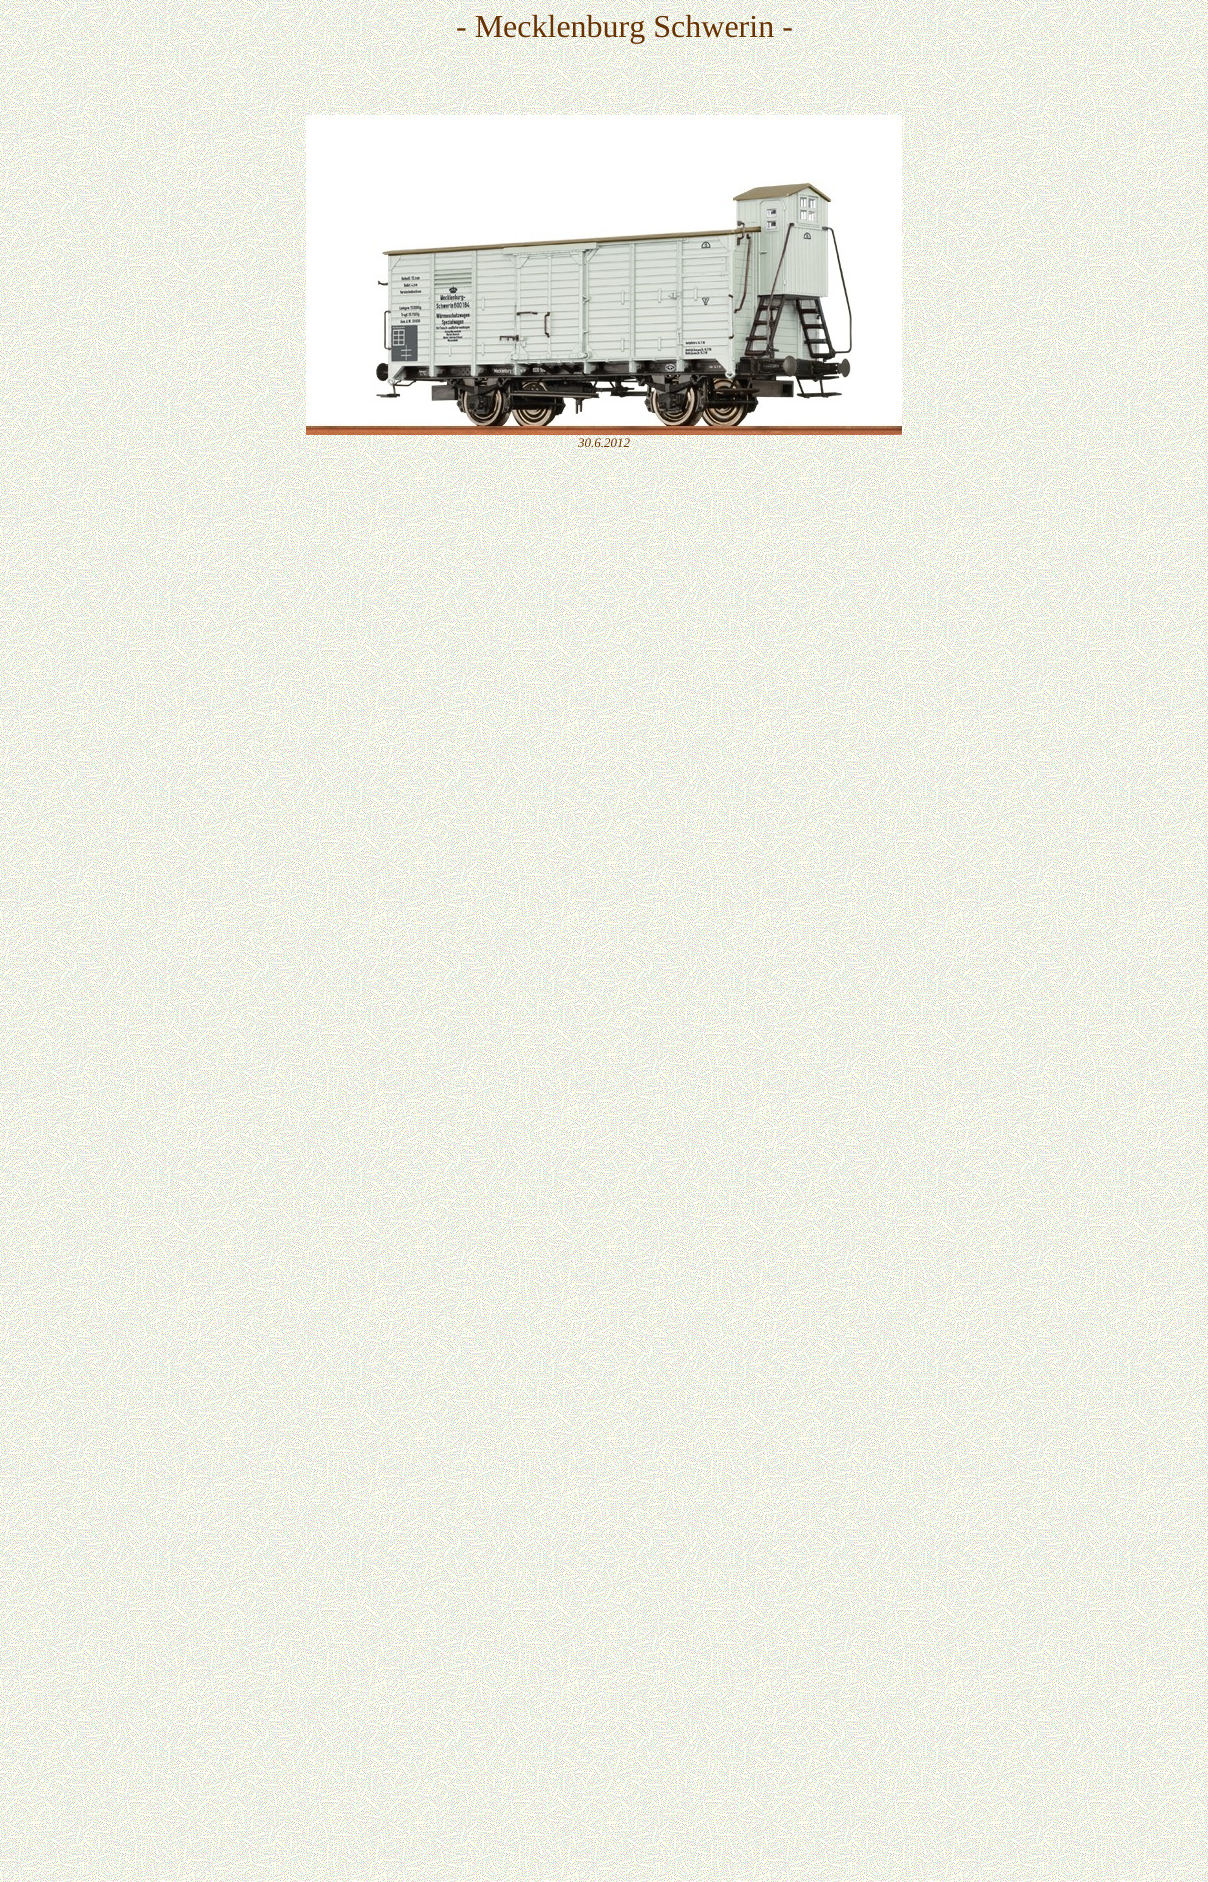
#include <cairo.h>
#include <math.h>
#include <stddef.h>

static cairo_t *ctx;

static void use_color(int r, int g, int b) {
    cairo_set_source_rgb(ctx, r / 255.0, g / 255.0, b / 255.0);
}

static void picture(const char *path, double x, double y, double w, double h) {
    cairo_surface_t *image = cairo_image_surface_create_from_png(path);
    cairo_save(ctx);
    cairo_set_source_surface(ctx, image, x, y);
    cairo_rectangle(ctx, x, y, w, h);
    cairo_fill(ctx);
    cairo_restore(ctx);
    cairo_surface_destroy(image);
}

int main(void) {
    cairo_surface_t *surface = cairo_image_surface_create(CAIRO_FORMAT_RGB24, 1208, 1882);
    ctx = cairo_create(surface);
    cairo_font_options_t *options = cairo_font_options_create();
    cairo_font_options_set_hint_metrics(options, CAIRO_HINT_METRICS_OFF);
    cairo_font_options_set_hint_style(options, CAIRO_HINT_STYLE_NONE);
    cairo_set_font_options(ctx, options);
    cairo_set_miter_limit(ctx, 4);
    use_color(255, 255, 255);
    cairo_paint(ctx);
    picture("img1.png", 0, 0, 1208, 1882);
    cairo_select_font_face(ctx, "Liberation Serif", CAIRO_FONT_SLANT_NORMAL, CAIRO_FONT_WEIGHT_NORMAL);
    cairo_set_font_size(ctx, 32);
    use_color(102, 51, 0);
    cairo_move_to(ctx, 456, 37);
    cairo_show_text(ctx, "- Mecklenburg Schwerin -");
    picture("img2.png", 306, 115, 596, 320);
    cairo_select_font_face(ctx, "Liberation Serif", CAIRO_FONT_SLANT_ITALIC, CAIRO_FONT_WEIGHT_NORMAL);
    cairo_set_font_size(ctx, 13);
    cairo_move_to(ctx, 578, 447);
    cairo_show_text(ctx, "30.6.2012");
    cairo_surface_write_to_png(surface, "result.png");
    cairo_font_options_destroy(options);
    cairo_destroy(ctx);
    cairo_surface_destroy(surface);
    return 0;
}
